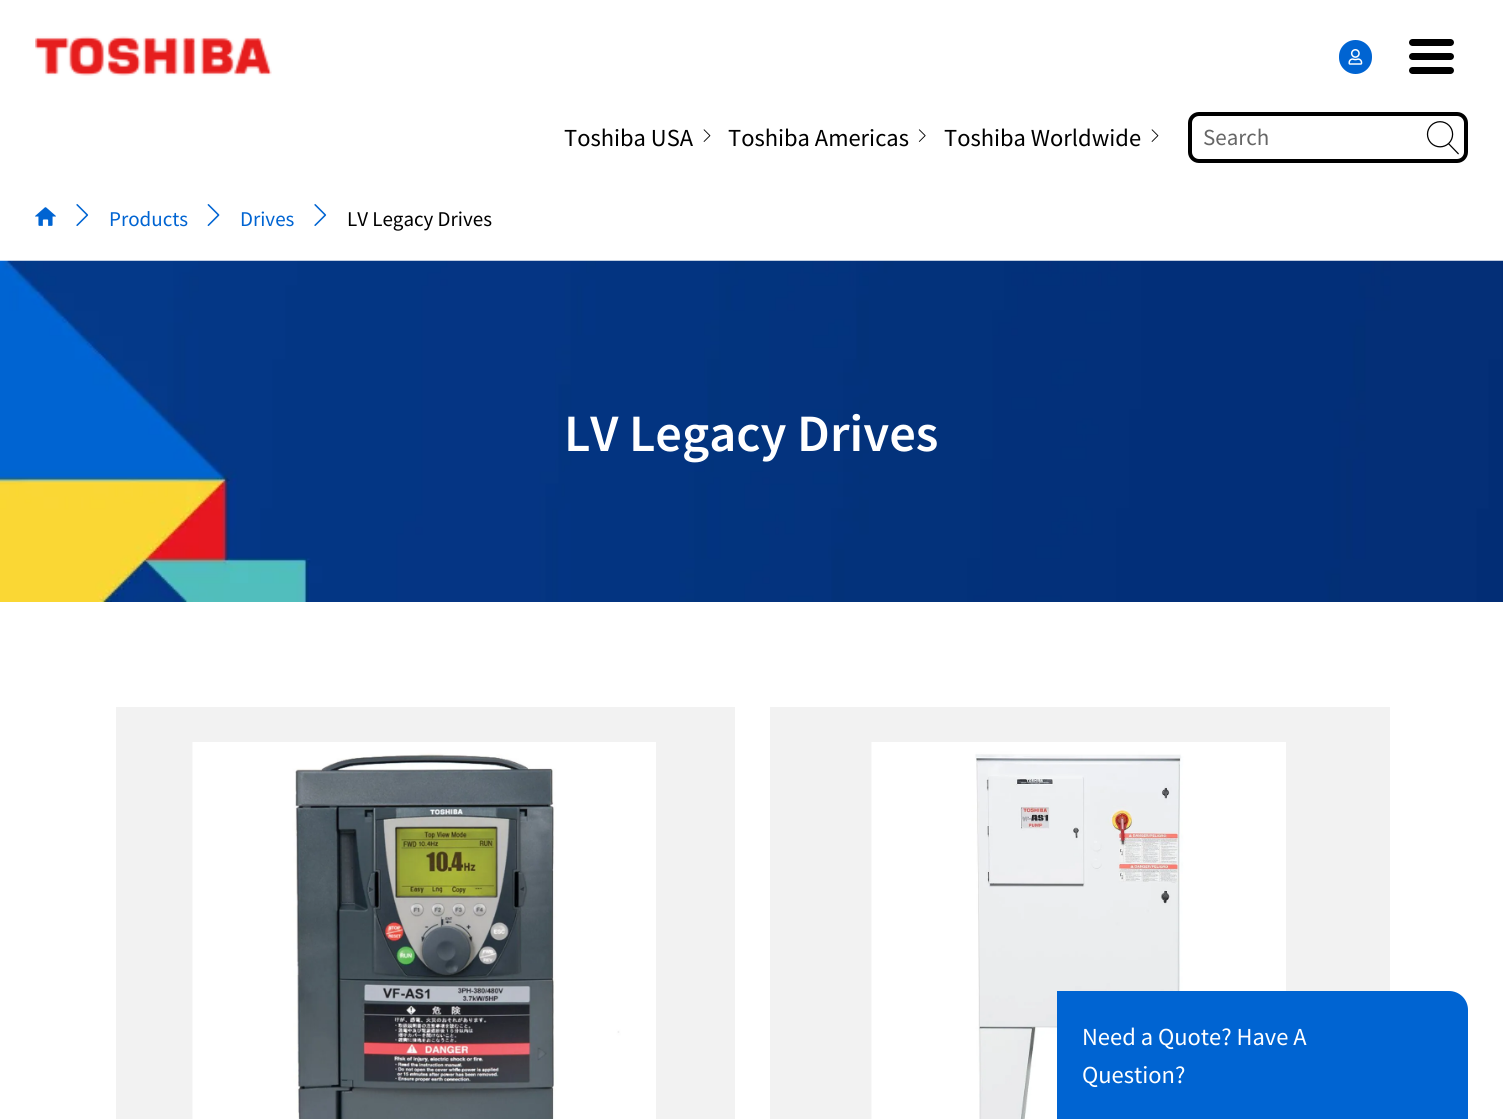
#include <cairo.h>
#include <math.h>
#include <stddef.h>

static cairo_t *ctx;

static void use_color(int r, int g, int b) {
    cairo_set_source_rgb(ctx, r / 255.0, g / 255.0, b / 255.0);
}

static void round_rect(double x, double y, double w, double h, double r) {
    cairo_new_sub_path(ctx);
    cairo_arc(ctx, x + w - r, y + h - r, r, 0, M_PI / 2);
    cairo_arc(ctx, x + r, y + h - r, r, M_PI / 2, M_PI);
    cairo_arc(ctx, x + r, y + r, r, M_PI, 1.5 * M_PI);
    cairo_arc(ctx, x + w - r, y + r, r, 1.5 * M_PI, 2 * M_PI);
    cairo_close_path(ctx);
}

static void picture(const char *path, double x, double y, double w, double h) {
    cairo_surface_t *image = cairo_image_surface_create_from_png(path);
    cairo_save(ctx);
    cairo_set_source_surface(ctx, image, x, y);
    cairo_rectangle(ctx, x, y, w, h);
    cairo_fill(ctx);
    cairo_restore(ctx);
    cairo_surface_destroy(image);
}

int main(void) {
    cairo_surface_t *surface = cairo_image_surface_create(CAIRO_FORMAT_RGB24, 1503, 1119);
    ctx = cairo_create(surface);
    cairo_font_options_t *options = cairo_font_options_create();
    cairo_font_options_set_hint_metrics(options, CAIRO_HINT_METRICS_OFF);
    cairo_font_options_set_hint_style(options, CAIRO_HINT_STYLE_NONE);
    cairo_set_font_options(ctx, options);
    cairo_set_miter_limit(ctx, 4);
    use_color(255, 255, 255);
    cairo_paint(ctx);
    picture("img1.png", 35, 36, 237, 40);
    use_color(0, 100, 210);
    round_rect(1339, 40, 33, 34, 16.5);
    cairo_fill(ctx);
    picture("img2.png", 1348, 49, 15, 16);
    use_color(0, 0, 0);
    round_rect(1409, 53, 45, 7, 3.5);
    cairo_fill(ctx);
    round_rect(1409, 39, 45, 7, 3.5);
    cairo_fill(ctx);
    round_rect(1409, 67, 45, 7, 3.5);
    cairo_fill(ctx);
    cairo_select_font_face(ctx, "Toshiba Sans", CAIRO_FONT_SLANT_NORMAL, CAIRO_FONT_WEIGHT_NORMAL);
    cairo_set_font_size(ctx, 24.5);
    cairo_move_to(ctx, 564, 146);
    cairo_show_text(ctx, "Toshiba USA");
    picture("img3.png", 703, 129, 8, 13);
    cairo_move_to(ctx, 728, 146);
    cairo_show_text(ctx, "Toshiba Americas");
    picture("img4.png", 918, 129, 8, 13);
    cairo_move_to(ctx, 944, 146);
    cairo_show_text(ctx, "Toshiba Worldwide");
    picture("img3.png", 1151, 129, 8, 13);
    round_rect(1190, 114, 276, 47, 9);
    cairo_set_line_width(ctx, 4);
    cairo_stroke(ctx);
    cairo_set_font_size(ctx, 23);
    use_color(102, 102, 102);
    cairo_move_to(ctx, 1203, 145);
    cairo_show_text(ctx, "Search");
    picture("img5.png", 1426, 121, 33, 34);
    picture("img6.png", 35, 207, 21, 19);
    picture("img7.png", 76, 204, 13, 22);
    cairo_set_font_size(ctx, 21);
    use_color(0, 100, 210);
    cairo_move_to(ctx, 109, 226);
    cairo_show_text(ctx, "Products");
    picture("img8.png", 207, 204, 13, 22);
    cairo_move_to(ctx, 240, 226);
    cairo_show_text(ctx, "Drives");
    picture("img7.png", 314, 204, 13, 22);
    use_color(0, 0, 0);
    cairo_move_to(ctx, 347, 226);
    cairo_show_text(ctx, "LV Legacy Drives");
    picture("img9.png", 0, 260, 1503, 342);
    cairo_select_font_face(ctx, "Toshiba Sans Medium", CAIRO_FONT_SLANT_NORMAL, CAIRO_FONT_WEIGHT_NORMAL);
    cairo_set_font_size(ctx, 52.5);
    use_color(255, 255, 255);
    cairo_move_to(ctx, 564, 451);
    cairo_show_text(ctx, "LV Legacy Drives");
    use_color(242, 242, 242);
    cairo_rectangle(ctx, 116, 707, 619, 412);
    cairo_fill(ctx);
    picture("img10.png", 192, 742, 464, 377);
    cairo_rectangle(ctx, 770, 707, 620, 412);
    cairo_fill(ctx);
    picture("img11.png", 871, 742, 415, 377);
    use_color(0, 100, 210);
    cairo_new_path(ctx);
    cairo_move_to(ctx, 1058, 992);
    cairo_line_to(ctx, 1449, 992);
    cairo_curve_to(ctx, 1459, 992, 1467, 1000, 1467, 1010);
    cairo_line_to(ctx, 1467, 1119);
    cairo_line_to(ctx, 1058, 1119);
    cairo_close_path(ctx);
    cairo_fill_preserve(ctx);
    cairo_set_line_width(ctx, 2);
    cairo_stroke(ctx);
    cairo_select_font_face(ctx, "Toshiba Sans", CAIRO_FONT_SLANT_NORMAL, CAIRO_FONT_WEIGHT_NORMAL);
    cairo_set_font_size(ctx, 24.5);
    use_color(255, 255, 255);
    cairo_move_to(ctx, 1082, 1045);
    cairo_show_text(ctx, "Need a Quote? Have A");
    cairo_move_to(ctx, 1082, 1083);
    cairo_show_text(ctx, "Question?");
    cairo_surface_write_to_png(surface, "result.png");
    cairo_font_options_destroy(options);
    cairo_destroy(ctx);
    cairo_surface_destroy(surface);
    return 0;
}
